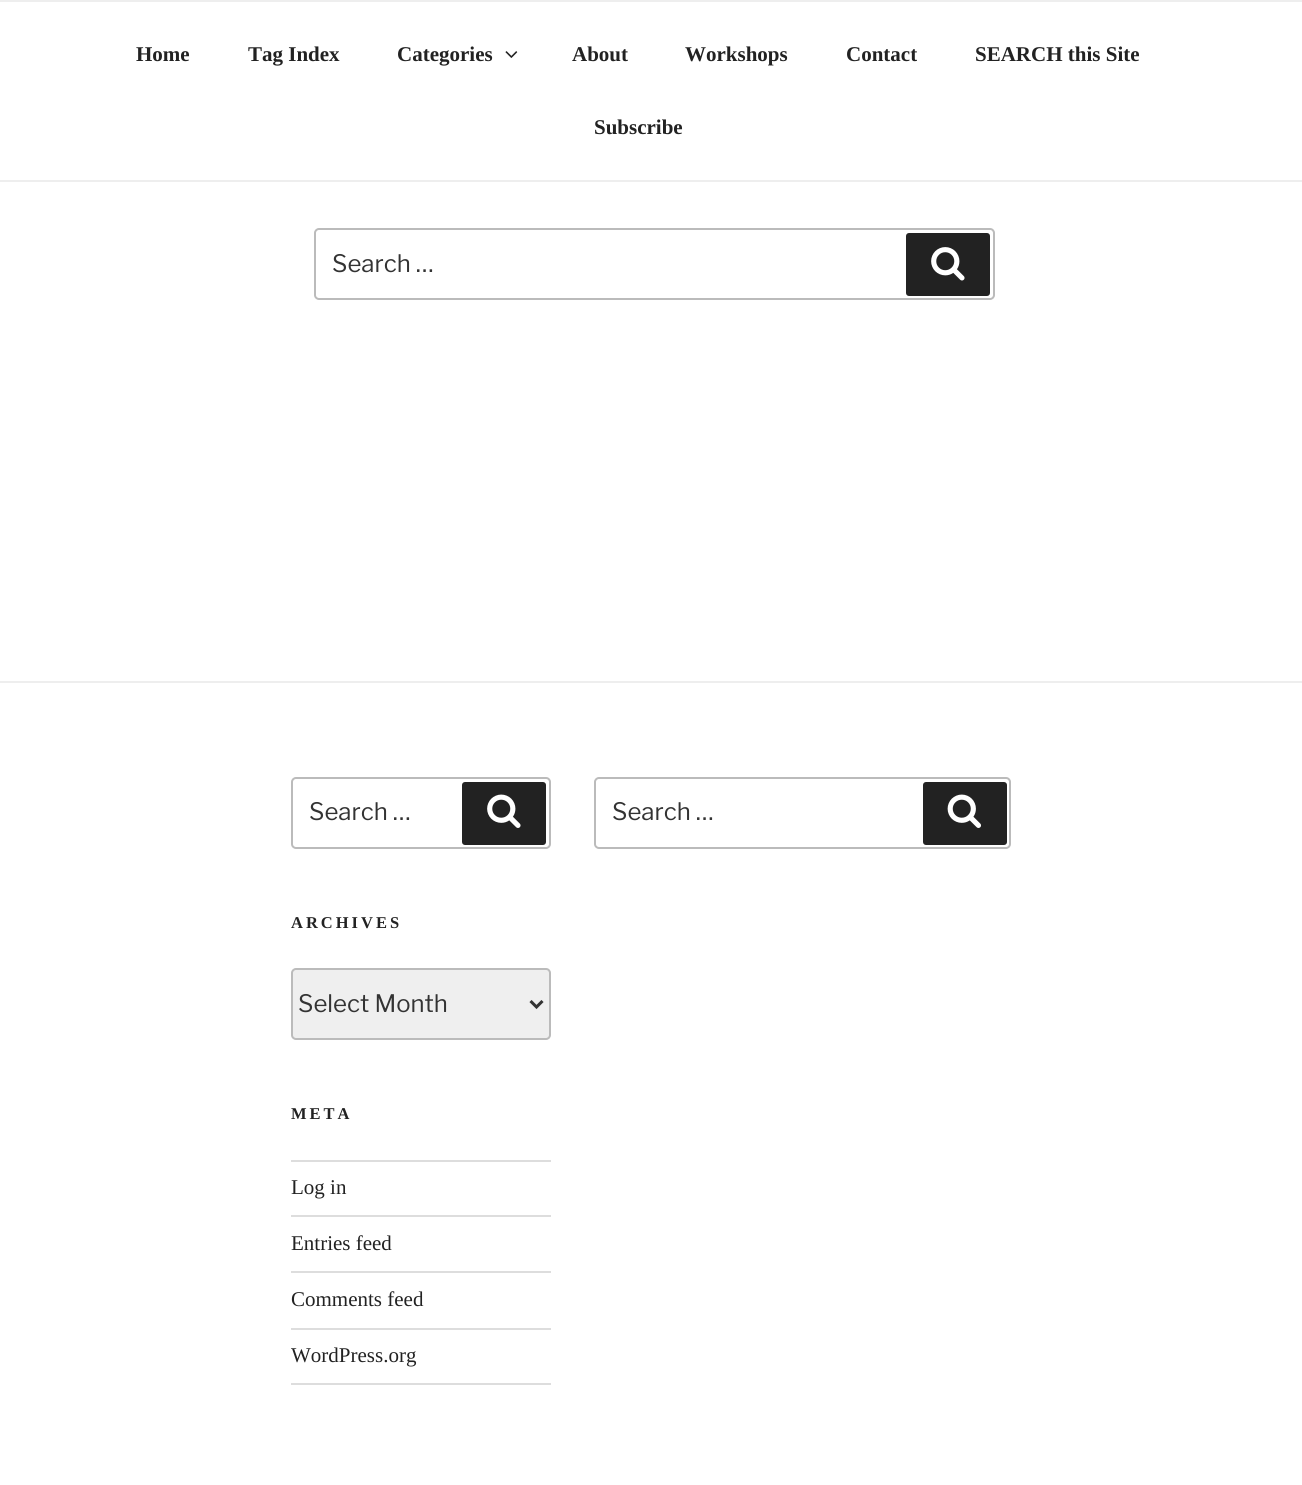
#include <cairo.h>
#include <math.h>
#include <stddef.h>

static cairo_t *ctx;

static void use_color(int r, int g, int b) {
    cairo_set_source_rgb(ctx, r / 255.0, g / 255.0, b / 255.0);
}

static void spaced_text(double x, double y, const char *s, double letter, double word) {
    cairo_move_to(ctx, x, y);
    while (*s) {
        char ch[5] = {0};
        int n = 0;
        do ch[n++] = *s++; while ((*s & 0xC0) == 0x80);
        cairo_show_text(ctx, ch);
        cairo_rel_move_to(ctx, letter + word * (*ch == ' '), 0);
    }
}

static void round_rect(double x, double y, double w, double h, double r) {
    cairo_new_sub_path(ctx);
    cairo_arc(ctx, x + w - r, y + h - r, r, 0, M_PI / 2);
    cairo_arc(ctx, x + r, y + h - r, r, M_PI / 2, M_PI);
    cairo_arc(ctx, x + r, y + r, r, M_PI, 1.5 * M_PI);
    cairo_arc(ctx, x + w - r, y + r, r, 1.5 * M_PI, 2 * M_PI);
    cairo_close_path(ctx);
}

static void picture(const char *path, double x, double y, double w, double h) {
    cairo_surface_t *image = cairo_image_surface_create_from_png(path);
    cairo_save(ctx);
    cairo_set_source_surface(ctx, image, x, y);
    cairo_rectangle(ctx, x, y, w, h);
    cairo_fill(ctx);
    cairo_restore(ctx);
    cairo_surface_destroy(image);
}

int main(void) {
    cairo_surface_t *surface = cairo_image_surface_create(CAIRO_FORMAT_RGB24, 1302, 1485);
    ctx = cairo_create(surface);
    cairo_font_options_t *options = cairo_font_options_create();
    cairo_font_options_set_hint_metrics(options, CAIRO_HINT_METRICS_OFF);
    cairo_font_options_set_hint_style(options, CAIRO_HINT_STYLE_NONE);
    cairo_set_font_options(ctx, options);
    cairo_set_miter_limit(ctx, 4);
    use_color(255, 255, 255);
    cairo_paint(ctx);
    use_color(238, 238, 238);
    cairo_rectangle(ctx, 0, 0, 1302, 2);
    cairo_fill(ctx);
    cairo_rectangle(ctx, 0, 180, 1302, 2);
    cairo_fill(ctx);
    cairo_select_font_face(ctx, "Liberation Serif", CAIRO_FONT_SLANT_NORMAL, CAIRO_FONT_WEIGHT_BOLD);
    cairo_set_font_size(ctx, 21);
    use_color(34, 34, 34);
    cairo_move_to(ctx, 136, 61);
    cairo_show_text(ctx, "Home");
    cairo_move_to(ctx, 248, 61);
    cairo_show_text(ctx, "Tag Index");
    cairo_move_to(ctx, 397, 61);
    cairo_show_text(ctx, "Categories");
    picture("img1.png", 505, 51, 13, 7);
    cairo_move_to(ctx, 572, 61);
    cairo_show_text(ctx, "About");
    cairo_move_to(ctx, 685, 61);
    cairo_show_text(ctx, "Workshops");
    cairo_move_to(ctx, 846, 61);
    cairo_show_text(ctx, "Contact");
    cairo_move_to(ctx, 975, 61);
    cairo_show_text(ctx, "SEARCH this Site");
    cairo_move_to(ctx, 594, 134);
    cairo_show_text(ctx, "Subscribe");
    round_rect(315, 229, 679, 70, 4);
    use_color(187, 187, 187);
    cairo_stroke(ctx);
    cairo_select_font_face(ctx, "Libre Franklin Thin", CAIRO_FONT_SLANT_NORMAL, CAIRO_FONT_WEIGHT_NORMAL);
    cairo_set_font_size(ctx, 24);
    use_color(51, 51, 51);
    cairo_move_to(ctx, 332, 272);
    cairo_show_text(ctx, "Search …");
    use_color(34, 34, 34);
    round_rect(906, 233, 84, 63, 3);
    cairo_fill(ctx);
    picture("img2.png", 931, 247, 34, 34);
    use_color(238, 238, 238);
    cairo_rectangle(ctx, 0, 681, 1302, 2);
    cairo_fill(ctx);
    round_rect(292, 778, 258, 70, 4);
    use_color(187, 187, 187);
    cairo_stroke(ctx);
    use_color(51, 51, 51);
    cairo_move_to(ctx, 309, 820);
    cairo_show_text(ctx, "Search …");
    use_color(34, 34, 34);
    round_rect(462, 782, 84, 63, 3);
    cairo_fill(ctx);
    picture("img3.png", 487, 794, 34, 34);
    cairo_select_font_face(ctx, "Liberation Serif", CAIRO_FONT_SLANT_NORMAL, CAIRO_FONT_WEIGHT_BOLD);
    cairo_set_font_size(ctx, 16.5);
    spaced_text(291, 928, "ARCHIVES", 3, 0);
    use_color(239, 239, 239);
    round_rect(292, 969, 258, 70, 4);
    cairo_fill_preserve(ctx);
    use_color(187, 187, 187);
    cairo_stroke(ctx);
    cairo_new_path(ctx);
    cairo_move_to(ctx, 530.5, 1001);
    cairo_line_to(ctx, 536.5, 1007);
    cairo_line_to(ctx, 542.5, 1001);
    use_color(51, 51, 51);
    cairo_set_line_width(ctx, 3);
    cairo_stroke(ctx);
    cairo_select_font_face(ctx, "Libre Franklin Thin", CAIRO_FONT_SLANT_NORMAL, CAIRO_FONT_WEIGHT_NORMAL);
    cairo_set_font_size(ctx, 24);
    cairo_move_to(ctx, 298, 1012);
    cairo_show_text(ctx, "Select Month");
    cairo_select_font_face(ctx, "Liberation Serif", CAIRO_FONT_SLANT_NORMAL, CAIRO_FONT_WEIGHT_BOLD);
    cairo_set_font_size(ctx, 16.5);
    use_color(34, 34, 34);
    spaced_text(291, 1119, "META", 3, 0);
    use_color(221, 221, 221);
    cairo_rectangle(ctx, 291, 1160, 260, 2);
    cairo_fill(ctx);
    cairo_rectangle(ctx, 291, 1215, 260, 2);
    cairo_fill(ctx);
    cairo_select_font_face(ctx, "Liberation Serif", CAIRO_FONT_SLANT_NORMAL, CAIRO_FONT_WEIGHT_NORMAL);
    cairo_set_font_size(ctx, 21);
    use_color(34, 34, 34);
    cairo_move_to(ctx, 291, 1194);
    cairo_show_text(ctx, "Log in");
    use_color(221, 221, 221);
    cairo_rectangle(ctx, 291, 1271, 260, 2);
    cairo_fill(ctx);
    use_color(34, 34, 34);
    cairo_move_to(ctx, 291, 1250);
    cairo_show_text(ctx, "Entries feed");
    use_color(221, 221, 221);
    cairo_rectangle(ctx, 291, 1328, 260, 2);
    cairo_fill(ctx);
    use_color(34, 34, 34);
    cairo_move_to(ctx, 291, 1306);
    cairo_show_text(ctx, "Comments feed");
    use_color(221, 221, 221);
    cairo_rectangle(ctx, 291, 1383, 260, 2);
    cairo_fill(ctx);
    use_color(34, 34, 34);
    cairo_move_to(ctx, 291, 1362);
    cairo_show_text(ctx, "WordPress.org");
    round_rect(595, 778, 415, 70, 4);
    use_color(187, 187, 187);
    cairo_set_line_width(ctx, 2);
    cairo_stroke(ctx);
    cairo_select_font_face(ctx, "Libre Franklin Thin", CAIRO_FONT_SLANT_NORMAL, CAIRO_FONT_WEIGHT_NORMAL);
    cairo_set_font_size(ctx, 24);
    use_color(51, 51, 51);
    cairo_move_to(ctx, 612, 820);
    cairo_show_text(ctx, "Search …");
    use_color(34, 34, 34);
    round_rect(923, 782, 84, 63, 3);
    cairo_fill(ctx);
    picture("img4.png", 947, 794, 34, 34);
    cairo_surface_write_to_png(surface, "result.png");
    cairo_font_options_destroy(options);
    cairo_destroy(ctx);
    cairo_surface_destroy(surface);
    return 0;
}
